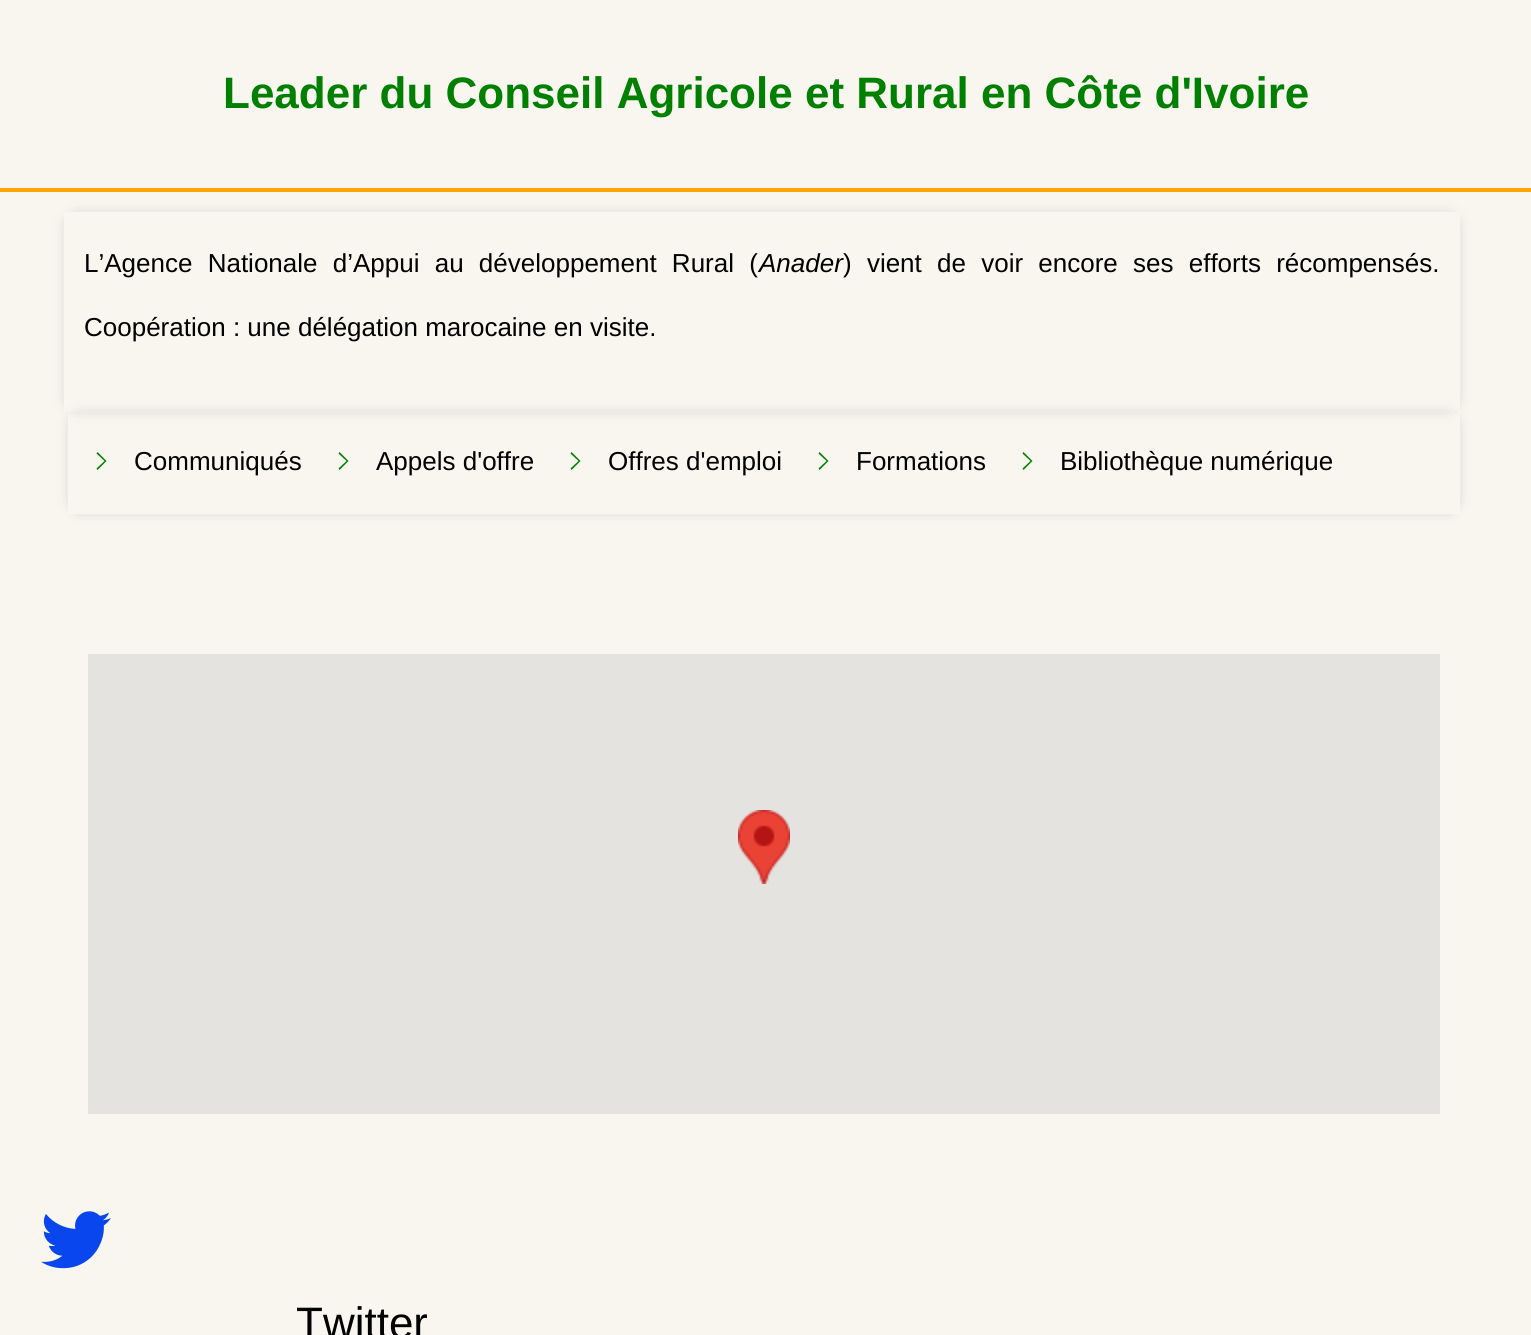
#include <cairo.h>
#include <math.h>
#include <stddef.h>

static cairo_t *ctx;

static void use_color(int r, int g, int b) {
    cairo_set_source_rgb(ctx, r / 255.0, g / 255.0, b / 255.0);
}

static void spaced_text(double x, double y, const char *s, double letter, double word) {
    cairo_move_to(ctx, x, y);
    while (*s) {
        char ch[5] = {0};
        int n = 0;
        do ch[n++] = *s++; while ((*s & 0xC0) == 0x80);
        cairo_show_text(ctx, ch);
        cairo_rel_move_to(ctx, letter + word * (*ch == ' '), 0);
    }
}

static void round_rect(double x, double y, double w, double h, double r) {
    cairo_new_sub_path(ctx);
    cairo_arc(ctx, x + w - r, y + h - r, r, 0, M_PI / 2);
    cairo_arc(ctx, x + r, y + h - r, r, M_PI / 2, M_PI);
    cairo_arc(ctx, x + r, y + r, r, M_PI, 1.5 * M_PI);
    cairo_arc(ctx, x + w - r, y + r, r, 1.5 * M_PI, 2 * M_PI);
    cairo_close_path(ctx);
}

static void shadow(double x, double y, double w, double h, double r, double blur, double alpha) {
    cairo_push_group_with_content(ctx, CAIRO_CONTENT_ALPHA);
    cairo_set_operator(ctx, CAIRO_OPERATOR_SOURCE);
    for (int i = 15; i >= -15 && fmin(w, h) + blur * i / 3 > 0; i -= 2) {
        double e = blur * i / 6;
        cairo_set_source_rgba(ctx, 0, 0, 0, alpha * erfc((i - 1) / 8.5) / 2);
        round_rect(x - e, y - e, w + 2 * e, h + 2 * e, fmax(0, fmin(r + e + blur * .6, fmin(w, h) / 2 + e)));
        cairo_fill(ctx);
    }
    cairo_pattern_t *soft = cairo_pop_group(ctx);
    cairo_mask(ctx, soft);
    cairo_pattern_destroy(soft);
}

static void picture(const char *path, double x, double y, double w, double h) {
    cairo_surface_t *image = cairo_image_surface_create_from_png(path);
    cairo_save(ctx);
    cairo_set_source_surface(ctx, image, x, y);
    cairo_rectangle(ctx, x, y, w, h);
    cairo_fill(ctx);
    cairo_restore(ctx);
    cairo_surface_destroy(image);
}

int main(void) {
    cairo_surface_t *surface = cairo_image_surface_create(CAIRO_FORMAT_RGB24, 1531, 1335);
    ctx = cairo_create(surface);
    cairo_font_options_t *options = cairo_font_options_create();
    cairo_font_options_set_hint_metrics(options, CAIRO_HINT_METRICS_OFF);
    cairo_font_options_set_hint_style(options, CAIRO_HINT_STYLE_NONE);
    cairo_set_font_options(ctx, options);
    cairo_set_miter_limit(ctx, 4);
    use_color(248, 246, 239);
    cairo_paint(ctx);
    use_color(255, 165, 0);
    cairo_rectangle(ctx, 0, 188, 1531, 4);
    cairo_fill(ctx);
    cairo_select_font_face(ctx, "Liberation Sans", CAIRO_FONT_SLANT_NORMAL, CAIRO_FONT_WEIGHT_BOLD);
    cairo_set_font_size(ctx, 44);
    use_color(0, 128, 0);
    cairo_move_to(ctx, 223, 108);
    cairo_show_text(ctx, "Leader du Conseil Agricole et Rural en Côte d'Ivoire");
    cairo_save(ctx);
    cairo_set_fill_rule(ctx, CAIRO_FILL_RULE_EVEN_ODD);
    cairo_new_path(ctx);
    cairo_move_to(ctx, 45, 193);
    cairo_line_to(ctx, 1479, 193);
    cairo_line_to(ctx, 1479, 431);
    cairo_line_to(ctx, 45, 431);
    cairo_close_path(ctx);
    cairo_move_to(ctx, 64, 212);
    cairo_line_to(ctx, 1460, 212);
    cairo_line_to(ctx, 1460, 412);
    cairo_line_to(ctx, 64, 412);
    cairo_close_path(ctx);
    cairo_clip(ctx);
    use_color(0, 0, 0);
    shadow(76, 224, 1372, 176, 0, 10, 0.5);
    cairo_restore(ctx);
    cairo_select_font_face(ctx, "Liberation Sans", CAIRO_FONT_SLANT_NORMAL, CAIRO_FONT_WEIGHT_NORMAL);
    cairo_set_font_size(ctx, 26);
    use_color(0, 0, 0);
    spaced_text(84, 272, "L’Agence Nationale d’Appui au développement Rural (", 0, 8);
    cairo_select_font_face(ctx, "Liberation Sans", CAIRO_FONT_SLANT_ITALIC, CAIRO_FONT_WEIGHT_NORMAL);
    cairo_move_to(ctx, 759, 272);
    cairo_show_text(ctx, "Anader");
    cairo_select_font_face(ctx, "Liberation Sans", CAIRO_FONT_SLANT_NORMAL, CAIRO_FONT_WEIGHT_NORMAL);
    spaced_text(843, 272, ") vient de voir encore ses efforts récompensés.", 0, 8);
    cairo_move_to(ctx, 84, 336);
    cairo_show_text(ctx, "Coopération : une délégation marocaine en visite.");
    cairo_save(ctx);
    cairo_set_fill_rule(ctx, CAIRO_FILL_RULE_EVEN_ODD);
    cairo_new_path(ctx);
    cairo_move_to(ctx, 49, 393);
    cairo_line_to(ctx, 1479, 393);
    cairo_line_to(ctx, 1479, 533);
    cairo_line_to(ctx, 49, 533);
    cairo_close_path(ctx);
    cairo_move_to(ctx, 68, 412);
    cairo_line_to(ctx, 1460, 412);
    cairo_line_to(ctx, 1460, 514);
    cairo_line_to(ctx, 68, 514);
    cairo_close_path(ctx);
    cairo_clip(ctx);
    use_color(0, 0, 0);
    shadow(80, 424, 1368, 78, 0, 10, 0.5);
    cairo_restore(ctx);
    use_color(0, 128, 0);
    cairo_new_path(ctx);
    cairo_move_to(ctx, 97.5, 452);
    cairo_line_to(ctx, 96.5, 453.5);
    cairo_line_to(ctx, 104.5, 461);
    cairo_line_to(ctx, 96.5, 468.5);
    cairo_line_to(ctx, 97.5, 470);
    cairo_line_to(ctx, 106.5, 461);
    cairo_close_path(ctx);
    cairo_fill(ctx);
    use_color(0, 0, 0);
    cairo_move_to(ctx, 134, 470);
    cairo_show_text(ctx, "Communiqués");
    use_color(0, 128, 0);
    cairo_new_path(ctx);
    cairo_move_to(ctx, 339.5, 452);
    cairo_line_to(ctx, 338.5, 453.5);
    cairo_line_to(ctx, 346.5, 461);
    cairo_line_to(ctx, 338.5, 468.5);
    cairo_line_to(ctx, 339.5, 470);
    cairo_line_to(ctx, 348.5, 461);
    cairo_close_path(ctx);
    cairo_fill(ctx);
    use_color(0, 0, 0);
    cairo_move_to(ctx, 376, 470);
    cairo_show_text(ctx, "Appels d'offre");
    use_color(0, 128, 0);
    cairo_new_path(ctx);
    cairo_move_to(ctx, 571.5, 452);
    cairo_line_to(ctx, 570.5, 453.5);
    cairo_line_to(ctx, 578.5, 461);
    cairo_line_to(ctx, 570.5, 468.5);
    cairo_line_to(ctx, 571.5, 470);
    cairo_line_to(ctx, 580.5, 461);
    cairo_close_path(ctx);
    cairo_fill(ctx);
    use_color(0, 0, 0);
    cairo_move_to(ctx, 608, 470);
    cairo_show_text(ctx, "Offres d'emploi");
    use_color(0, 128, 0);
    cairo_new_path(ctx);
    cairo_move_to(ctx, 819.5, 452);
    cairo_line_to(ctx, 818.5, 453.5);
    cairo_line_to(ctx, 826.5, 461);
    cairo_line_to(ctx, 818.5, 468.5);
    cairo_line_to(ctx, 819.5, 470);
    cairo_line_to(ctx, 828.5, 461);
    cairo_close_path(ctx);
    cairo_fill(ctx);
    use_color(0, 0, 0);
    cairo_move_to(ctx, 856, 470);
    cairo_show_text(ctx, "Formations");
    use_color(0, 128, 0);
    cairo_new_path(ctx);
    cairo_move_to(ctx, 1023.5, 452);
    cairo_line_to(ctx, 1022.5, 453.5);
    cairo_line_to(ctx, 1030.5, 461);
    cairo_line_to(ctx, 1022.5, 468.5);
    cairo_line_to(ctx, 1023.5, 470);
    cairo_line_to(ctx, 1032.5, 461);
    cairo_close_path(ctx);
    cairo_fill(ctx);
    use_color(0, 0, 0);
    cairo_move_to(ctx, 1060, 470);
    cairo_show_text(ctx, "Bibliothèque numérique");
    use_color(229, 227, 223);
    cairo_rectangle(ctx, 88, 654, 1352, 460);
    cairo_fill(ctx);
    picture("img1.png", 738, 810, 52, 74);
    picture("img2.png", 41, 1211, 70, 58);
    cairo_set_font_size(ctx, 44);
    use_color(0, 0, 0);
    cairo_move_to(ctx, 296, 1338);
    cairo_show_text(ctx, "Twitter");
    cairo_surface_write_to_png(surface, "result.png");
    cairo_font_options_destroy(options);
    cairo_destroy(ctx);
    cairo_surface_destroy(surface);
    return 0;
}
